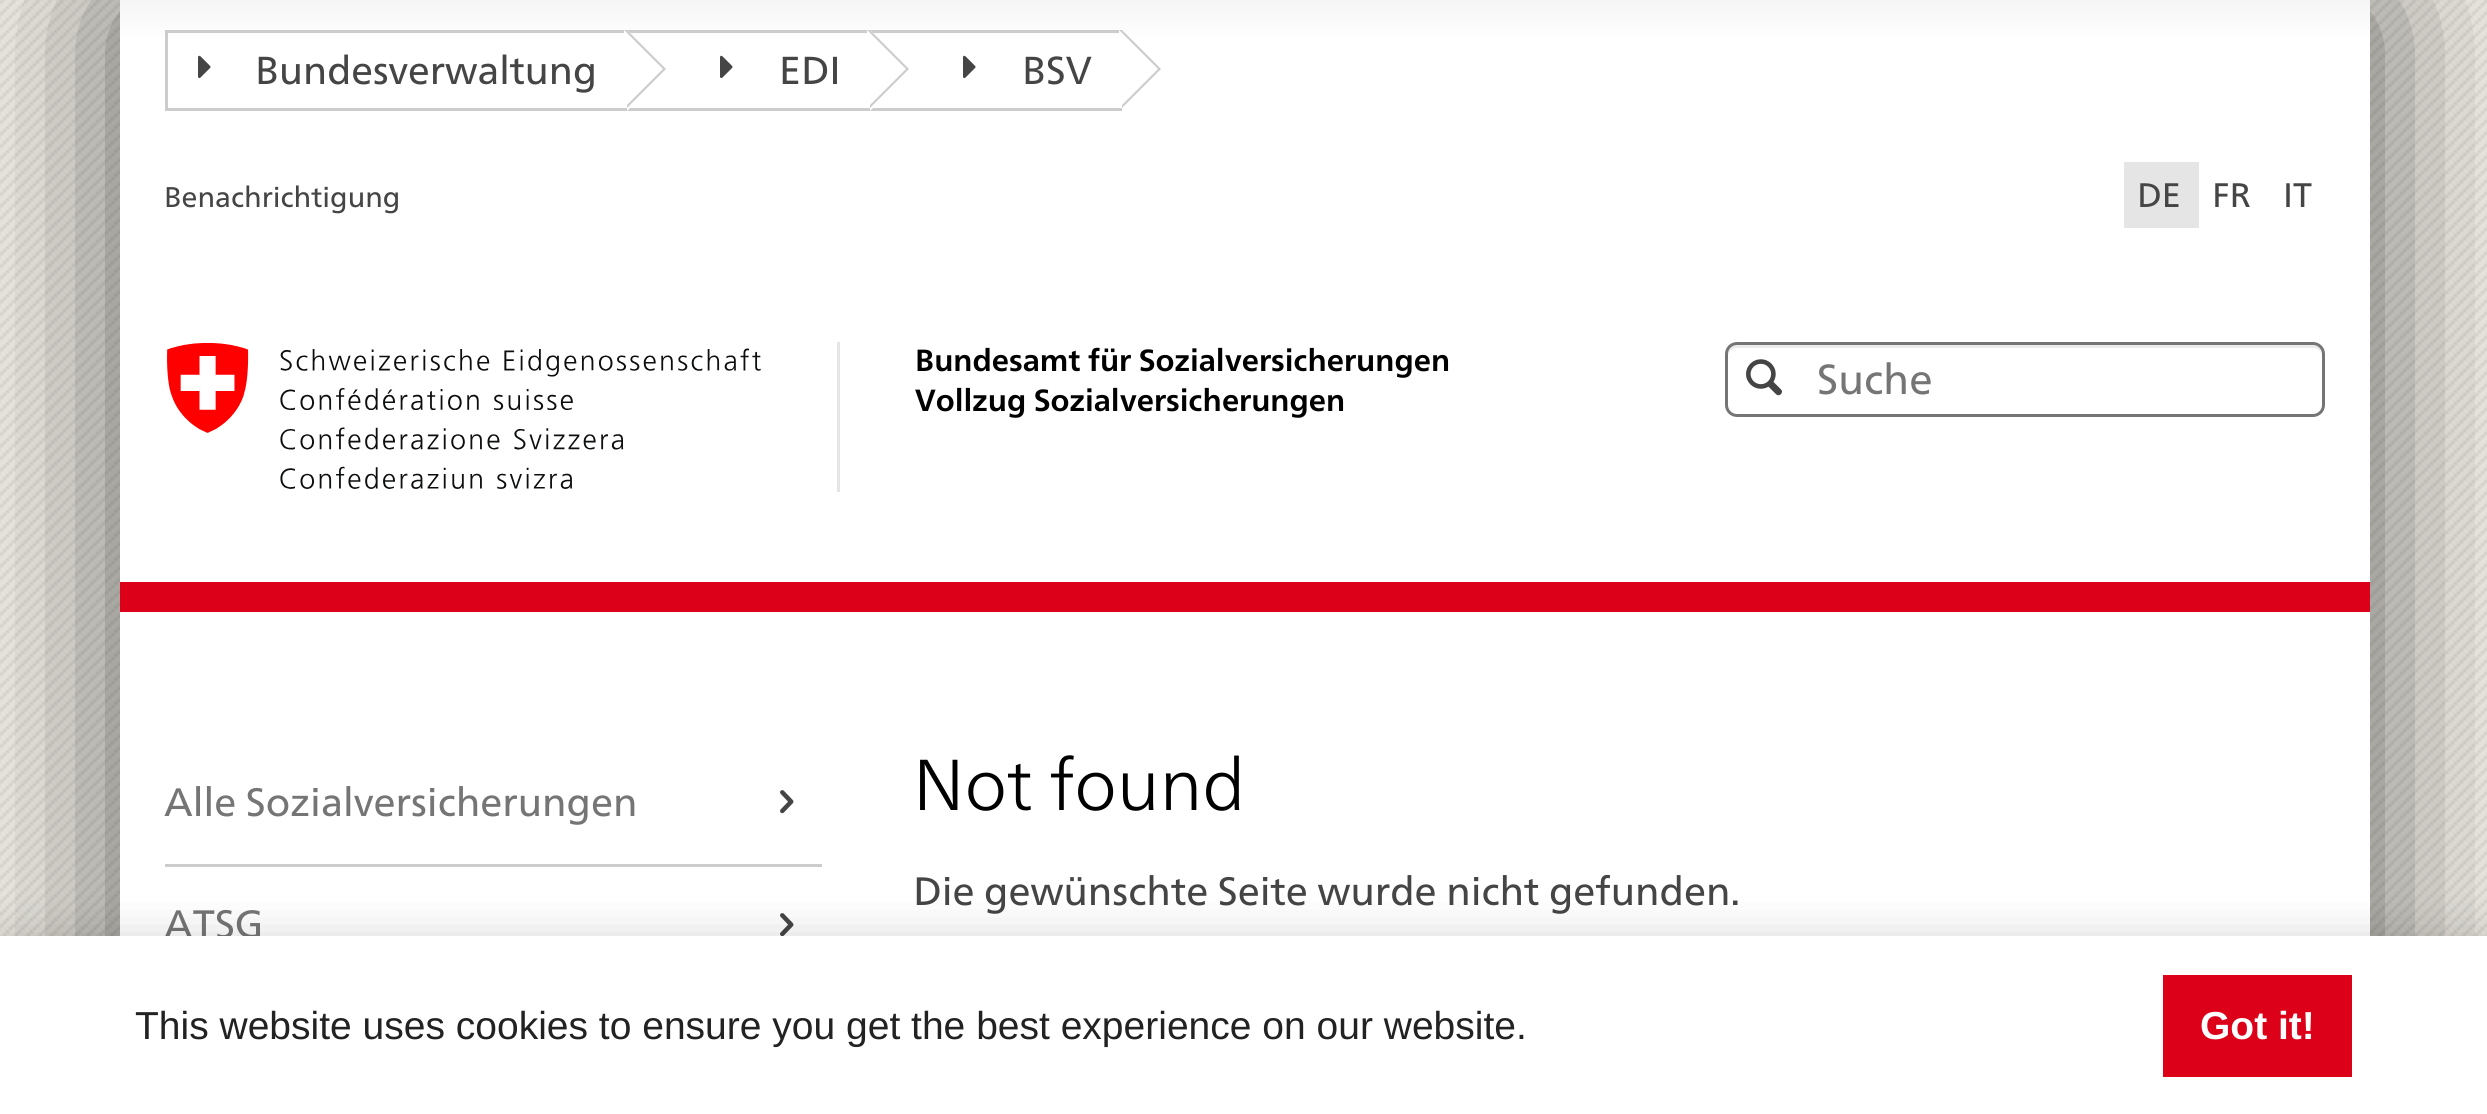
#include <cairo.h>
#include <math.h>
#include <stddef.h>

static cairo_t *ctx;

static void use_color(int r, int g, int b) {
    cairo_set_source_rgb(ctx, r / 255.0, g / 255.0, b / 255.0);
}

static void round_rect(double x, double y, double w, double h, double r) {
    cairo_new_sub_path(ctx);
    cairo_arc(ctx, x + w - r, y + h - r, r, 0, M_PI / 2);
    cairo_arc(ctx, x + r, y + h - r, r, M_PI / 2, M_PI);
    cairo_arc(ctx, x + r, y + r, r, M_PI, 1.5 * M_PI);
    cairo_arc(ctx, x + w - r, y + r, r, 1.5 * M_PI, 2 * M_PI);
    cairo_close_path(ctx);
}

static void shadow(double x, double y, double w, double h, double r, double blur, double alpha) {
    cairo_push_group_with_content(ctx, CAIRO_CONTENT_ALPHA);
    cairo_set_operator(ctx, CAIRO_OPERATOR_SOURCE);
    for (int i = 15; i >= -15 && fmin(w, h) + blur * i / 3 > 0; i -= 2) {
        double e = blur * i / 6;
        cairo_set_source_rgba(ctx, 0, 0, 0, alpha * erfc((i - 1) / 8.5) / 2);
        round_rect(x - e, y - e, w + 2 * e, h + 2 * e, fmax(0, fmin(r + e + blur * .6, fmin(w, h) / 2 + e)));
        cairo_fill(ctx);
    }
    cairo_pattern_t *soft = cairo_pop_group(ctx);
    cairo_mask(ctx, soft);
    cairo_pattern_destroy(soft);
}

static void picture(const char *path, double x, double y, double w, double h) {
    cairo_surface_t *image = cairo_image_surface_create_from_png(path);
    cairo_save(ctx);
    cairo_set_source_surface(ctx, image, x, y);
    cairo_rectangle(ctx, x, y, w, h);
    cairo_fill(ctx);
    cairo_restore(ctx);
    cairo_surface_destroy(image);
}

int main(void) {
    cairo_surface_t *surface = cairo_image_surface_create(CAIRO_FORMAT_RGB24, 2487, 1114);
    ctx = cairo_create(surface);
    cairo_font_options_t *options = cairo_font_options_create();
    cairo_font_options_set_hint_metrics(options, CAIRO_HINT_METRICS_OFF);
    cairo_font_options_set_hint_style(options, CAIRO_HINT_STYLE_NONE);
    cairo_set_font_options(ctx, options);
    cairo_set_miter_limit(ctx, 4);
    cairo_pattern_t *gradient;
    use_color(255, 255, 255);
    cairo_paint(ctx);
    picture("img1.png", 0, 0, 2487, 936);
    use_color(0, 0, 0);
    shadow(120, 0, 2250, 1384, 0, 90, 0.6);
    use_color(255, 255, 255);
    cairo_rectangle(ctx, 120, 612, 2250, 324);
    cairo_fill(ctx);
    gradient = cairo_pattern_create_linear(1245, 0, 1245, 582);
    cairo_pattern_add_color_stop_rgba(gradient, 0, 0.961, 0.961, 0.961, 1);
    cairo_pattern_add_color_stop_rgba(gradient, 0.07, 1, 1, 1, 1);
    cairo_pattern_add_color_stop_rgba(gradient, 1, 1, 1, 1, 1);
    cairo_set_source(ctx, gradient);
    cairo_pattern_destroy(gradient);
    cairo_rectangle(ctx, 120, 0, 2250, 582);
    cairo_fill(ctx);
    use_color(204, 204, 204);
    cairo_rectangle(ctx, 165, 30, 462, 3);
    cairo_fill(ctx);
    cairo_rectangle(ctx, 165, 108, 462, 3);
    cairo_fill(ctx);
    cairo_rectangle(ctx, 165, 30, 3, 81);
    cairo_fill(ctx);
    cairo_new_path(ctx);
    cairo_move_to(ctx, 627, 108);
    cairo_line_to(ctx, 627, 30);
    cairo_line_to(ctx, 666, 69);
    cairo_close_path(ctx);
    cairo_fill(ctx);
    use_color(255, 255, 255);
    cairo_new_path(ctx);
    cairo_move_to(ctx, 624, 108);
    cairo_line_to(ctx, 624, 30);
    cairo_line_to(ctx, 663, 69);
    cairo_close_path(ctx);
    cairo_fill(ctx);
    picture("img2.png", 198, 55, 13, 24);
    cairo_select_font_face(ctx, "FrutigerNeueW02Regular", CAIRO_FONT_SLANT_NORMAL, CAIRO_FONT_WEIGHT_NORMAL);
    cairo_set_font_size(ctx, 39);
    use_color(69, 69, 69);
    cairo_move_to(ctx, 255, 84);
    cairo_show_text(ctx, "Bundesverwaltung");
    use_color(204, 204, 204);
    cairo_new_path(ctx);
    cairo_move_to(ctx, 627, 30);
    cairo_line_to(ctx, 870, 30);
    cairo_line_to(ctx, 870, 33);
    cairo_line_to(ctx, 630, 33);
    cairo_close_path(ctx);
    cairo_fill(ctx);
    cairo_new_path(ctx);
    cairo_move_to(ctx, 870, 111);
    cairo_line_to(ctx, 627, 111);
    cairo_line_to(ctx, 630, 108);
    cairo_line_to(ctx, 870, 108);
    cairo_close_path(ctx);
    cairo_fill(ctx);
    cairo_new_path(ctx);
    cairo_move_to(ctx, 870, 108);
    cairo_line_to(ctx, 870, 30);
    cairo_line_to(ctx, 909, 69);
    cairo_close_path(ctx);
    cairo_fill(ctx);
    use_color(255, 255, 255);
    cairo_new_path(ctx);
    cairo_move_to(ctx, 867, 108);
    cairo_line_to(ctx, 867, 30);
    cairo_line_to(ctx, 906, 69);
    cairo_close_path(ctx);
    cairo_fill(ctx);
    picture("img2.png", 720, 55, 13, 24);
    use_color(69, 69, 69);
    cairo_move_to(ctx, 779, 84);
    cairo_show_text(ctx, "EDI");
    use_color(204, 204, 204);
    cairo_new_path(ctx);
    cairo_move_to(ctx, 870, 30);
    cairo_line_to(ctx, 1122, 30);
    cairo_line_to(ctx, 1122, 33);
    cairo_line_to(ctx, 873, 33);
    cairo_close_path(ctx);
    cairo_fill(ctx);
    cairo_new_path(ctx);
    cairo_move_to(ctx, 1122, 111);
    cairo_line_to(ctx, 870, 111);
    cairo_line_to(ctx, 873, 108);
    cairo_line_to(ctx, 1122, 108);
    cairo_close_path(ctx);
    cairo_fill(ctx);
    cairo_new_path(ctx);
    cairo_move_to(ctx, 1122, 108);
    cairo_line_to(ctx, 1122, 30);
    cairo_line_to(ctx, 1161, 69);
    cairo_close_path(ctx);
    cairo_fill(ctx);
    use_color(255, 255, 255);
    cairo_new_path(ctx);
    cairo_move_to(ctx, 1119, 108);
    cairo_line_to(ctx, 1119, 30);
    cairo_line_to(ctx, 1158, 69);
    cairo_close_path(ctx);
    cairo_fill(ctx);
    picture("img2.png", 963, 55, 13, 24);
    use_color(69, 69, 69);
    cairo_move_to(ctx, 1022, 84);
    cairo_show_text(ctx, "BSV");
    cairo_set_font_size(ctx, 28.5);
    cairo_move_to(ctx, 164, 207);
    cairo_show_text(ctx, "Benachrichtigung");
    use_color(229, 229, 229);
    cairo_rectangle(ctx, 2124, 162, 75, 66);
    cairo_fill(ctx);
    cairo_set_font_size(ctx, 34);
    use_color(69, 69, 69);
    cairo_move_to(ctx, 2137, 207);
    cairo_show_text(ctx, "DE");
    cairo_move_to(ctx, 2212, 207);
    cairo_show_text(ctx, "FR");
    cairo_move_to(ctx, 2283, 207);
    cairo_show_text(ctx, "IT");
    use_color(229, 229, 229);
    cairo_rectangle(ctx, 837, 342, 3, 150);
    cairo_fill(ctx);
    picture("img3.png", 167, 343, 594, 146);
    cairo_select_font_face(ctx, "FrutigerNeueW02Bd", CAIRO_FONT_SLANT_NORMAL, CAIRO_FONT_WEIGHT_BOLD);
    cairo_set_font_size(ctx, 30.6);
    use_color(0, 0, 0);
    cairo_move_to(ctx, 915, 371);
    cairo_show_text(ctx, "Bundesamt für Sozialversicherungen");
    cairo_move_to(ctx, 915, 411);
    cairo_show_text(ctx, "Vollzug Sozialversicherungen");
    use_color(236, 236, 236);
    cairo_new_path(ctx);
    cairo_move_to(ctx, 1737, 348);
    cairo_line_to(ctx, 2313, 348);
    cairo_curve_to(ctx, 2318, 348, 2322, 352, 2322, 357);
    cairo_curve_to(ctx, 2322, 351, 2320, 345, 2313, 345);
    cairo_line_to(ctx, 1737, 345);
    cairo_curve_to(ctx, 1730, 345, 1728, 351, 1728, 357);
    cairo_curve_to(ctx, 1728, 352, 1732, 348, 1737, 348);
    cairo_close_path(ctx);
    cairo_fill(ctx);
    round_rect(1726.5, 343.5, 597, 72, 10.5);
    use_color(117, 117, 117);
    cairo_set_line_width(ctx, 3);
    cairo_stroke(ctx);
    picture("img4.png", 1746, 359, 36, 37);
    cairo_select_font_face(ctx, "FrutigerNeueW02Regular", CAIRO_FONT_SLANT_NORMAL, CAIRO_FONT_WEIGHT_NORMAL);
    cairo_set_font_size(ctx, 42);
    cairo_move_to(ctx, 1817, 394);
    cairo_show_text(ctx, "Suche");
    use_color(220, 0, 24);
    cairo_rectangle(ctx, 120, 582, 2250, 30);
    cairo_fill(ctx);
    use_color(204, 204, 204);
    cairo_rectangle(ctx, 165, 864, 657, 3);
    cairo_fill(ctx);
    cairo_set_font_size(ctx, 39.6);
    use_color(117, 117, 117);
    cairo_move_to(ctx, 164, 816);
    cairo_show_text(ctx, "Alle Sozialversicherungen");
    picture("img5.png", 780, 790, 14, 24);
    cairo_move_to(ctx, 164, 938);
    cairo_show_text(ctx, "ATSG");
    picture("img6.png", 780, 913, 14, 23);
    cairo_select_font_face(ctx, "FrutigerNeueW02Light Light", CAIRO_FONT_SLANT_NORMAL, CAIRO_FONT_WEIGHT_NORMAL);
    cairo_set_font_size(ctx, 72);
    use_color(0, 0, 0);
    cairo_move_to(ctx, 913, 810);
    cairo_show_text(ctx, "Not found");
    cairo_select_font_face(ctx, "FrutigerNeueW02Regular", CAIRO_FONT_SLANT_NORMAL, CAIRO_FONT_WEIGHT_NORMAL);
    cairo_set_font_size(ctx, 39.6);
    use_color(69, 69, 69);
    cairo_move_to(ctx, 913, 905);
    cairo_show_text(ctx, "Die gewünschte Seite wurde nicht gefunden.");
    use_color(0, 0, 0);
    shadow(0, 936, 2487, 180, 0, 22.5, 0.15);
    use_color(255, 255, 255);
    cairo_rectangle(ctx, 0, 936, 2487, 178);
    cairo_fill(ctx);
    cairo_select_font_face(ctx, "Liberation Sans", CAIRO_FONT_SLANT_NORMAL, CAIRO_FONT_WEIGHT_NORMAL);
    cairo_set_font_size(ctx, 39);
    use_color(34, 34, 34);
    cairo_move_to(ctx, 135, 1039);
    cairo_show_text(ctx, "This website uses cookies to ensure you get the best experience on our website.");
    use_color(220, 0, 24);
    cairo_rectangle(ctx, 2163, 975, 189, 102);
    cairo_fill(ctx);
    cairo_select_font_face(ctx, "Liberation Sans", CAIRO_FONT_SLANT_NORMAL, CAIRO_FONT_WEIGHT_BOLD);
    use_color(255, 255, 255);
    cairo_move_to(ctx, 2200, 1039);
    cairo_show_text(ctx, "Got it!");
    cairo_surface_write_to_png(surface, "result.png");
    cairo_font_options_destroy(options);
    cairo_destroy(ctx);
    cairo_surface_destroy(surface);
    return 0;
}
